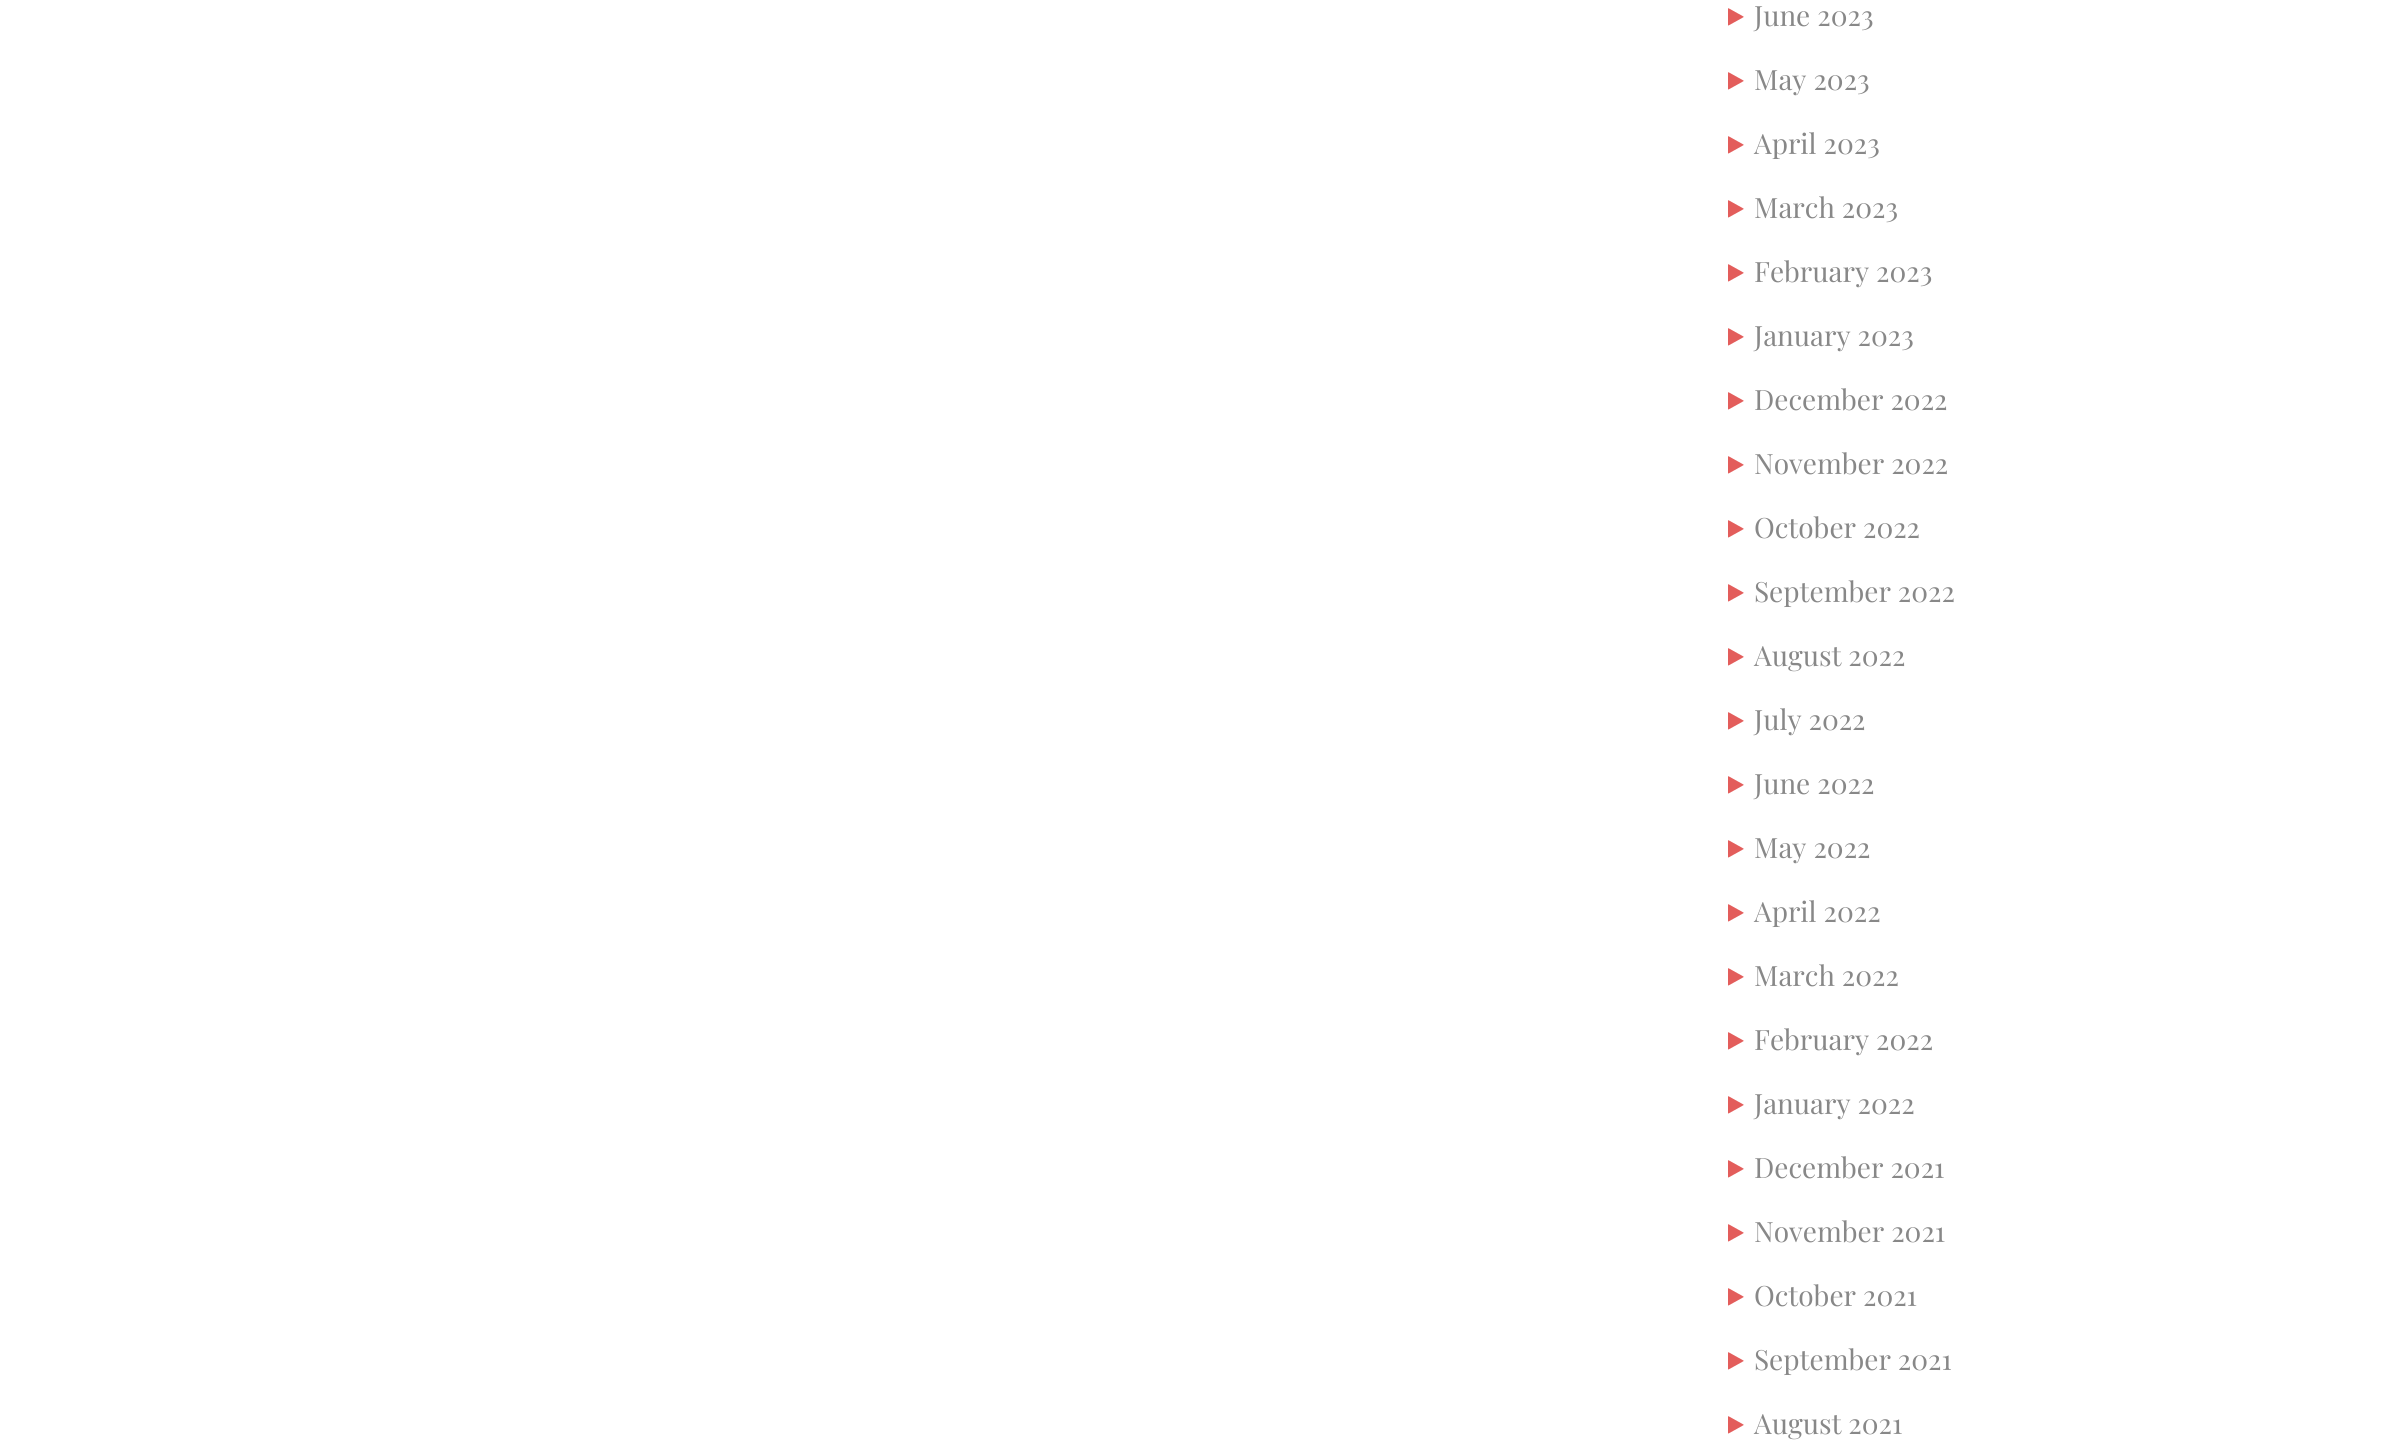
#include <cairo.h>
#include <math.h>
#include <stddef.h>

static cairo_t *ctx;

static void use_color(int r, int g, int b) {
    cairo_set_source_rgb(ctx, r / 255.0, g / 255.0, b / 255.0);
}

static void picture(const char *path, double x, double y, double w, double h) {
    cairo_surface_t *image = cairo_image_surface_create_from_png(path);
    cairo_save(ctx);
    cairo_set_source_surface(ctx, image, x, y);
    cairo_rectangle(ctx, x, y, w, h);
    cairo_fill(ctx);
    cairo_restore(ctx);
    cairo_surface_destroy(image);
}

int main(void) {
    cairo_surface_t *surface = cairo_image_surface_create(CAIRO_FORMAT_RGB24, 2392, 1454);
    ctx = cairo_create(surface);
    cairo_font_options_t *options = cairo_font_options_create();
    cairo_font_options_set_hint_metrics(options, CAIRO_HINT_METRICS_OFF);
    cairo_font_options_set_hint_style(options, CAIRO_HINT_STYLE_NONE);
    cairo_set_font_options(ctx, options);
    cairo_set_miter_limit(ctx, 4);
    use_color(255, 255, 255);
    cairo_paint(ctx);
    picture("img1.png", 1728, 8, 16, 18);
    cairo_select_font_face(ctx, "Playfair Display", CAIRO_FONT_SLANT_NORMAL, CAIRO_FONT_WEIGHT_NORMAL);
    cairo_set_font_size(ctx, 28);
    use_color(136, 136, 136);
    cairo_move_to(ctx, 1754, 26);
    cairo_show_text(ctx, "June 2023");
    picture("img1.png", 1728, 72, 16, 18);
    cairo_move_to(ctx, 1754, 90);
    cairo_show_text(ctx, "May 2023");
    picture("img1.png", 1728, 136, 16, 18);
    cairo_move_to(ctx, 1754, 154);
    cairo_show_text(ctx, "April 2023");
    picture("img1.png", 1728, 200, 16, 18);
    cairo_move_to(ctx, 1754, 218);
    cairo_show_text(ctx, "March 2023");
    picture("img1.png", 1728, 264, 16, 18);
    cairo_move_to(ctx, 1754, 282);
    cairo_show_text(ctx, "February 2023");
    picture("img1.png", 1728, 328, 16, 18);
    cairo_move_to(ctx, 1754, 346);
    cairo_show_text(ctx, "January 2023");
    picture("img1.png", 1728, 392, 16, 18);
    cairo_move_to(ctx, 1754, 410);
    cairo_show_text(ctx, "December 2022");
    picture("img1.png", 1728, 456, 16, 18);
    cairo_move_to(ctx, 1754, 474);
    cairo_show_text(ctx, "November 2022");
    picture("img1.png", 1728, 520, 16, 18);
    cairo_move_to(ctx, 1754, 538);
    cairo_show_text(ctx, "October 2022");
    picture("img1.png", 1728, 584, 16, 18);
    cairo_move_to(ctx, 1754, 602);
    cairo_show_text(ctx, "September 2022");
    picture("img1.png", 1728, 648, 16, 18);
    cairo_move_to(ctx, 1754, 666);
    cairo_show_text(ctx, "August 2022");
    picture("img1.png", 1728, 712, 16, 18);
    cairo_move_to(ctx, 1754, 730);
    cairo_show_text(ctx, "July 2022");
    picture("img1.png", 1728, 776, 16, 18);
    cairo_move_to(ctx, 1754, 794);
    cairo_show_text(ctx, "June 2022");
    picture("img1.png", 1728, 840, 16, 18);
    cairo_move_to(ctx, 1754, 858);
    cairo_show_text(ctx, "May 2022");
    picture("img1.png", 1728, 904, 16, 18);
    cairo_move_to(ctx, 1754, 922);
    cairo_show_text(ctx, "April 2022");
    picture("img1.png", 1728, 968, 16, 18);
    cairo_move_to(ctx, 1754, 986);
    cairo_show_text(ctx, "March 2022");
    picture("img1.png", 1728, 1032, 16, 18);
    cairo_move_to(ctx, 1754, 1050);
    cairo_show_text(ctx, "February 2022");
    picture("img1.png", 1728, 1096, 16, 18);
    cairo_move_to(ctx, 1754, 1114);
    cairo_show_text(ctx, "January 2022");
    picture("img1.png", 1728, 1160, 16, 18);
    cairo_move_to(ctx, 1754, 1178);
    cairo_show_text(ctx, "December 2021");
    picture("img1.png", 1728, 1224, 16, 18);
    cairo_move_to(ctx, 1754, 1242);
    cairo_show_text(ctx, "November 2021");
    picture("img1.png", 1728, 1288, 16, 18);
    cairo_move_to(ctx, 1754, 1306);
    cairo_show_text(ctx, "October 2021");
    picture("img1.png", 1728, 1352, 16, 18);
    cairo_move_to(ctx, 1754, 1370);
    cairo_show_text(ctx, "September 2021");
    picture("img1.png", 1728, 1416, 16, 18);
    cairo_move_to(ctx, 1754, 1434);
    cairo_show_text(ctx, "August 2021");
    cairo_surface_write_to_png(surface, "result.png");
    cairo_font_options_destroy(options);
    cairo_destroy(ctx);
    cairo_surface_destroy(surface);
    return 0;
}
